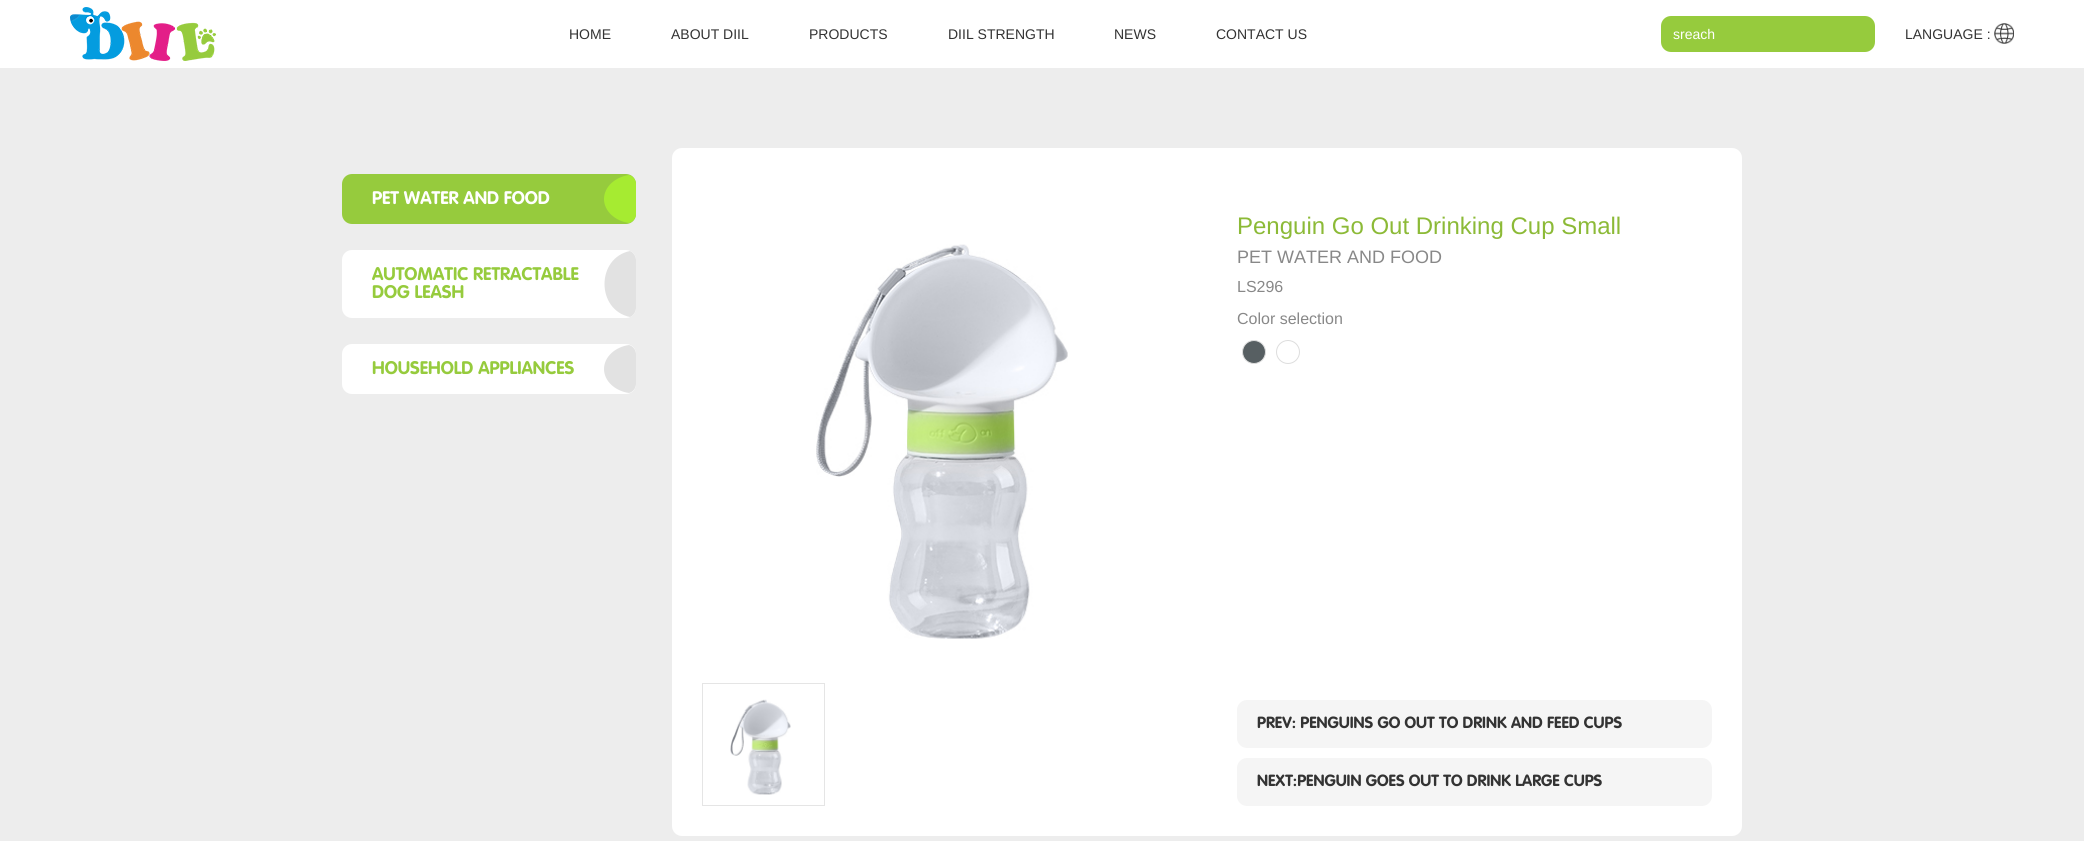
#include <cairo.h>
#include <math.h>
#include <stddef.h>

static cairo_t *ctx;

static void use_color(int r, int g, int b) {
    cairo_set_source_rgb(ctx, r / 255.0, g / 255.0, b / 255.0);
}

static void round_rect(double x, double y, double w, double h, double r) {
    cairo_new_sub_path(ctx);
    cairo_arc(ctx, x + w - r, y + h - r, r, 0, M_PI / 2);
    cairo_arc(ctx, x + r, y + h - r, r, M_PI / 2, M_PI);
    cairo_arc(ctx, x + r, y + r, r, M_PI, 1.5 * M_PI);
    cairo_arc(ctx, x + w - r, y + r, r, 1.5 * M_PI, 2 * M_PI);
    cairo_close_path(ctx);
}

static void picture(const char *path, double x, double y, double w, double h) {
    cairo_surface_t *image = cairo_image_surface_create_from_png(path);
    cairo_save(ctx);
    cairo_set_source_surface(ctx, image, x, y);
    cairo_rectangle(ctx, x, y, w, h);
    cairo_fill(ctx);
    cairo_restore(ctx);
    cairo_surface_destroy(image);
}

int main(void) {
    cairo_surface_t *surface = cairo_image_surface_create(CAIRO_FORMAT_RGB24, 2084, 841);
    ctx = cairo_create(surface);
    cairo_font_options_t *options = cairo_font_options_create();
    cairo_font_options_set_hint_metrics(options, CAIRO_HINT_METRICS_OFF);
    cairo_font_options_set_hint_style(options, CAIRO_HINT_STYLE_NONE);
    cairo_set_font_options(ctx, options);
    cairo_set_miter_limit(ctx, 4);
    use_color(255, 255, 255);
    cairo_paint(ctx);
    picture("img1.png", 70, 7, 146, 54);
    cairo_select_font_face(ctx, "Liberation Sans", CAIRO_FONT_SLANT_NORMAL, CAIRO_FONT_WEIGHT_NORMAL);
    cairo_set_font_size(ctx, 14);
    use_color(51, 51, 51);
    cairo_move_to(ctx, 569, 39);
    cairo_show_text(ctx, "HOME");
    cairo_move_to(ctx, 671, 39);
    cairo_show_text(ctx, "ABOUT DIIL");
    cairo_move_to(ctx, 809, 39);
    cairo_show_text(ctx, "PRODUCTS");
    cairo_move_to(ctx, 948, 39);
    cairo_show_text(ctx, "DIIL STRENGTH");
    cairo_move_to(ctx, 1114, 39);
    cairo_show_text(ctx, "NEWS");
    cairo_move_to(ctx, 1216, 39);
    cairo_show_text(ctx, "CONTACT US");
    use_color(150, 203, 61);
    round_rect(1661, 16, 214, 36, 10);
    cairo_fill(ctx);
    use_color(255, 255, 255);
    cairo_move_to(ctx, 1673, 39);
    cairo_show_text(ctx, "sreach");
    use_color(51, 51, 51);
    cairo_move_to(ctx, 1905, 39);
    cairo_show_text(ctx, "LANGUAGE :");
    picture("img2.png", 1994, 23, 20, 21);
    use_color(237, 237, 237);
    cairo_rectangle(ctx, 0, 68, 2084, 773);
    cairo_fill(ctx);
    use_color(150, 203, 61);
    round_rect(342, 174, 294, 50, 10);
    cairo_fill(ctx);
    cairo_select_font_face(ctx, "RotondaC", CAIRO_FONT_SLANT_NORMAL, CAIRO_FONT_WEIGHT_BOLD);
    cairo_set_font_size(ctx, 18);
    use_color(255, 255, 255);
    cairo_move_to(ctx, 372, 204);
    cairo_show_text(ctx, "PET WATER AND FOOD");
    use_color(166, 235, 49);
    cairo_new_path(ctx);
    cairo_move_to(ctx, 629, 175);
    cairo_curve_to(ctx, 633, 176, 636, 180, 636, 184);
    cairo_line_to(ctx, 636, 214);
    cairo_curve_to(ctx, 636, 218, 633, 222, 629, 223);
    cairo_curve_to(ctx, 615, 221, 604, 211, 604, 199);
    cairo_curve_to(ctx, 604, 187, 615, 177, 629, 175);
    cairo_close_path(ctx);
    cairo_fill(ctx);
    use_color(255, 255, 255);
    round_rect(342, 250, 294, 68, 10);
    cairo_fill(ctx);
    use_color(150, 203, 61);
    cairo_move_to(ctx, 372, 280);
    cairo_show_text(ctx, "AUTOMATIC RETRACTABLE");
    use_color(226, 226, 226);
    cairo_new_path(ctx);
    cairo_move_to(ctx, 630, 251);
    cairo_curve_to(ctx, 633, 252, 636, 256, 636, 260);
    cairo_line_to(ctx, 636, 308);
    cairo_curve_to(ctx, 636, 312, 633, 316, 630, 317);
    cairo_curve_to(ctx, 596, 310, 596, 258, 630, 251);
    cairo_close_path(ctx);
    cairo_fill(ctx);
    use_color(150, 203, 61);
    cairo_move_to(ctx, 372, 298);
    cairo_show_text(ctx, "DOG LEASH");
    use_color(255, 255, 255);
    round_rect(342, 344, 294, 50, 10);
    cairo_fill(ctx);
    use_color(150, 203, 61);
    cairo_move_to(ctx, 372, 374);
    cairo_show_text(ctx, "HOUSEHOLD APPLIANCES");
    use_color(226, 226, 226);
    cairo_new_path(ctx);
    cairo_move_to(ctx, 629, 345);
    cairo_curve_to(ctx, 633, 346, 636, 350, 636, 354);
    cairo_line_to(ctx, 636, 384);
    cairo_curve_to(ctx, 636, 388, 633, 392, 629, 393);
    cairo_curve_to(ctx, 615, 391, 604, 381, 604, 369);
    cairo_curve_to(ctx, 604, 357, 615, 347, 629, 345);
    cairo_close_path(ctx);
    cairo_fill(ctx);
    use_color(255, 255, 255);
    round_rect(672, 148, 1070, 688, 10);
    cairo_fill(ctx);
    picture("img3.png", 816, 244, 252, 395);
    cairo_rectangle(ctx, 702.5, 683.5, 122, 122);
    use_color(229, 229, 229);
    cairo_set_line_width(ctx, 1);
    cairo_stroke(ctx);
    picture("img4.png", 730, 699, 61, 96);
    cairo_select_font_face(ctx, "Liberation Sans", CAIRO_FONT_SLANT_NORMAL, CAIRO_FONT_WEIGHT_NORMAL);
    cairo_set_font_size(ctx, 24);
    use_color(140, 186, 55);
    cairo_move_to(ctx, 1237, 234);
    cairo_show_text(ctx, "Penguin Go Out Drinking Cup Small");
    cairo_set_font_size(ctx, 18);
    use_color(136, 136, 136);
    cairo_move_to(ctx, 1237, 263);
    cairo_show_text(ctx, "PET WATER AND FOOD");
    cairo_set_font_size(ctx, 16);
    cairo_move_to(ctx, 1237, 292);
    cairo_show_text(ctx, "LS296");
    cairo_move_to(ctx, 1237, 324);
    cairo_show_text(ctx, "Color selection");
    use_color(87, 95, 98);
    cairo_new_path(ctx);
    cairo_arc(ctx, 1254, 352, 11.5, 0, 2 * M_PI);
    cairo_fill_preserve(ctx);
    use_color(221, 221, 221);
    cairo_stroke(ctx);
    cairo_arc(ctx, 1288, 352, 11.5, 0, 2 * M_PI);
    cairo_stroke(ctx);
    use_color(245, 245, 245);
    round_rect(1237, 700, 475, 48, 10);
    cairo_fill(ctx);
    cairo_select_font_face(ctx, "RotondaC", CAIRO_FONT_SLANT_NORMAL, CAIRO_FONT_WEIGHT_BOLD);
    use_color(51, 51, 51);
    cairo_move_to(ctx, 1257, 728);
    cairo_show_text(ctx, "PREV: PENGUINS GO OUT TO DRINK AND FEED CUPS");
    use_color(245, 245, 245);
    round_rect(1237, 758, 475, 48, 10);
    cairo_fill(ctx);
    use_color(51, 51, 51);
    cairo_move_to(ctx, 1257, 786);
    cairo_show_text(ctx, "NEXT:PENGUIN GOES OUT TO DRINK LARGE CUPS");
    cairo_surface_write_to_png(surface, "result.png");
    cairo_font_options_destroy(options);
    cairo_destroy(ctx);
    cairo_surface_destroy(surface);
    return 0;
}
